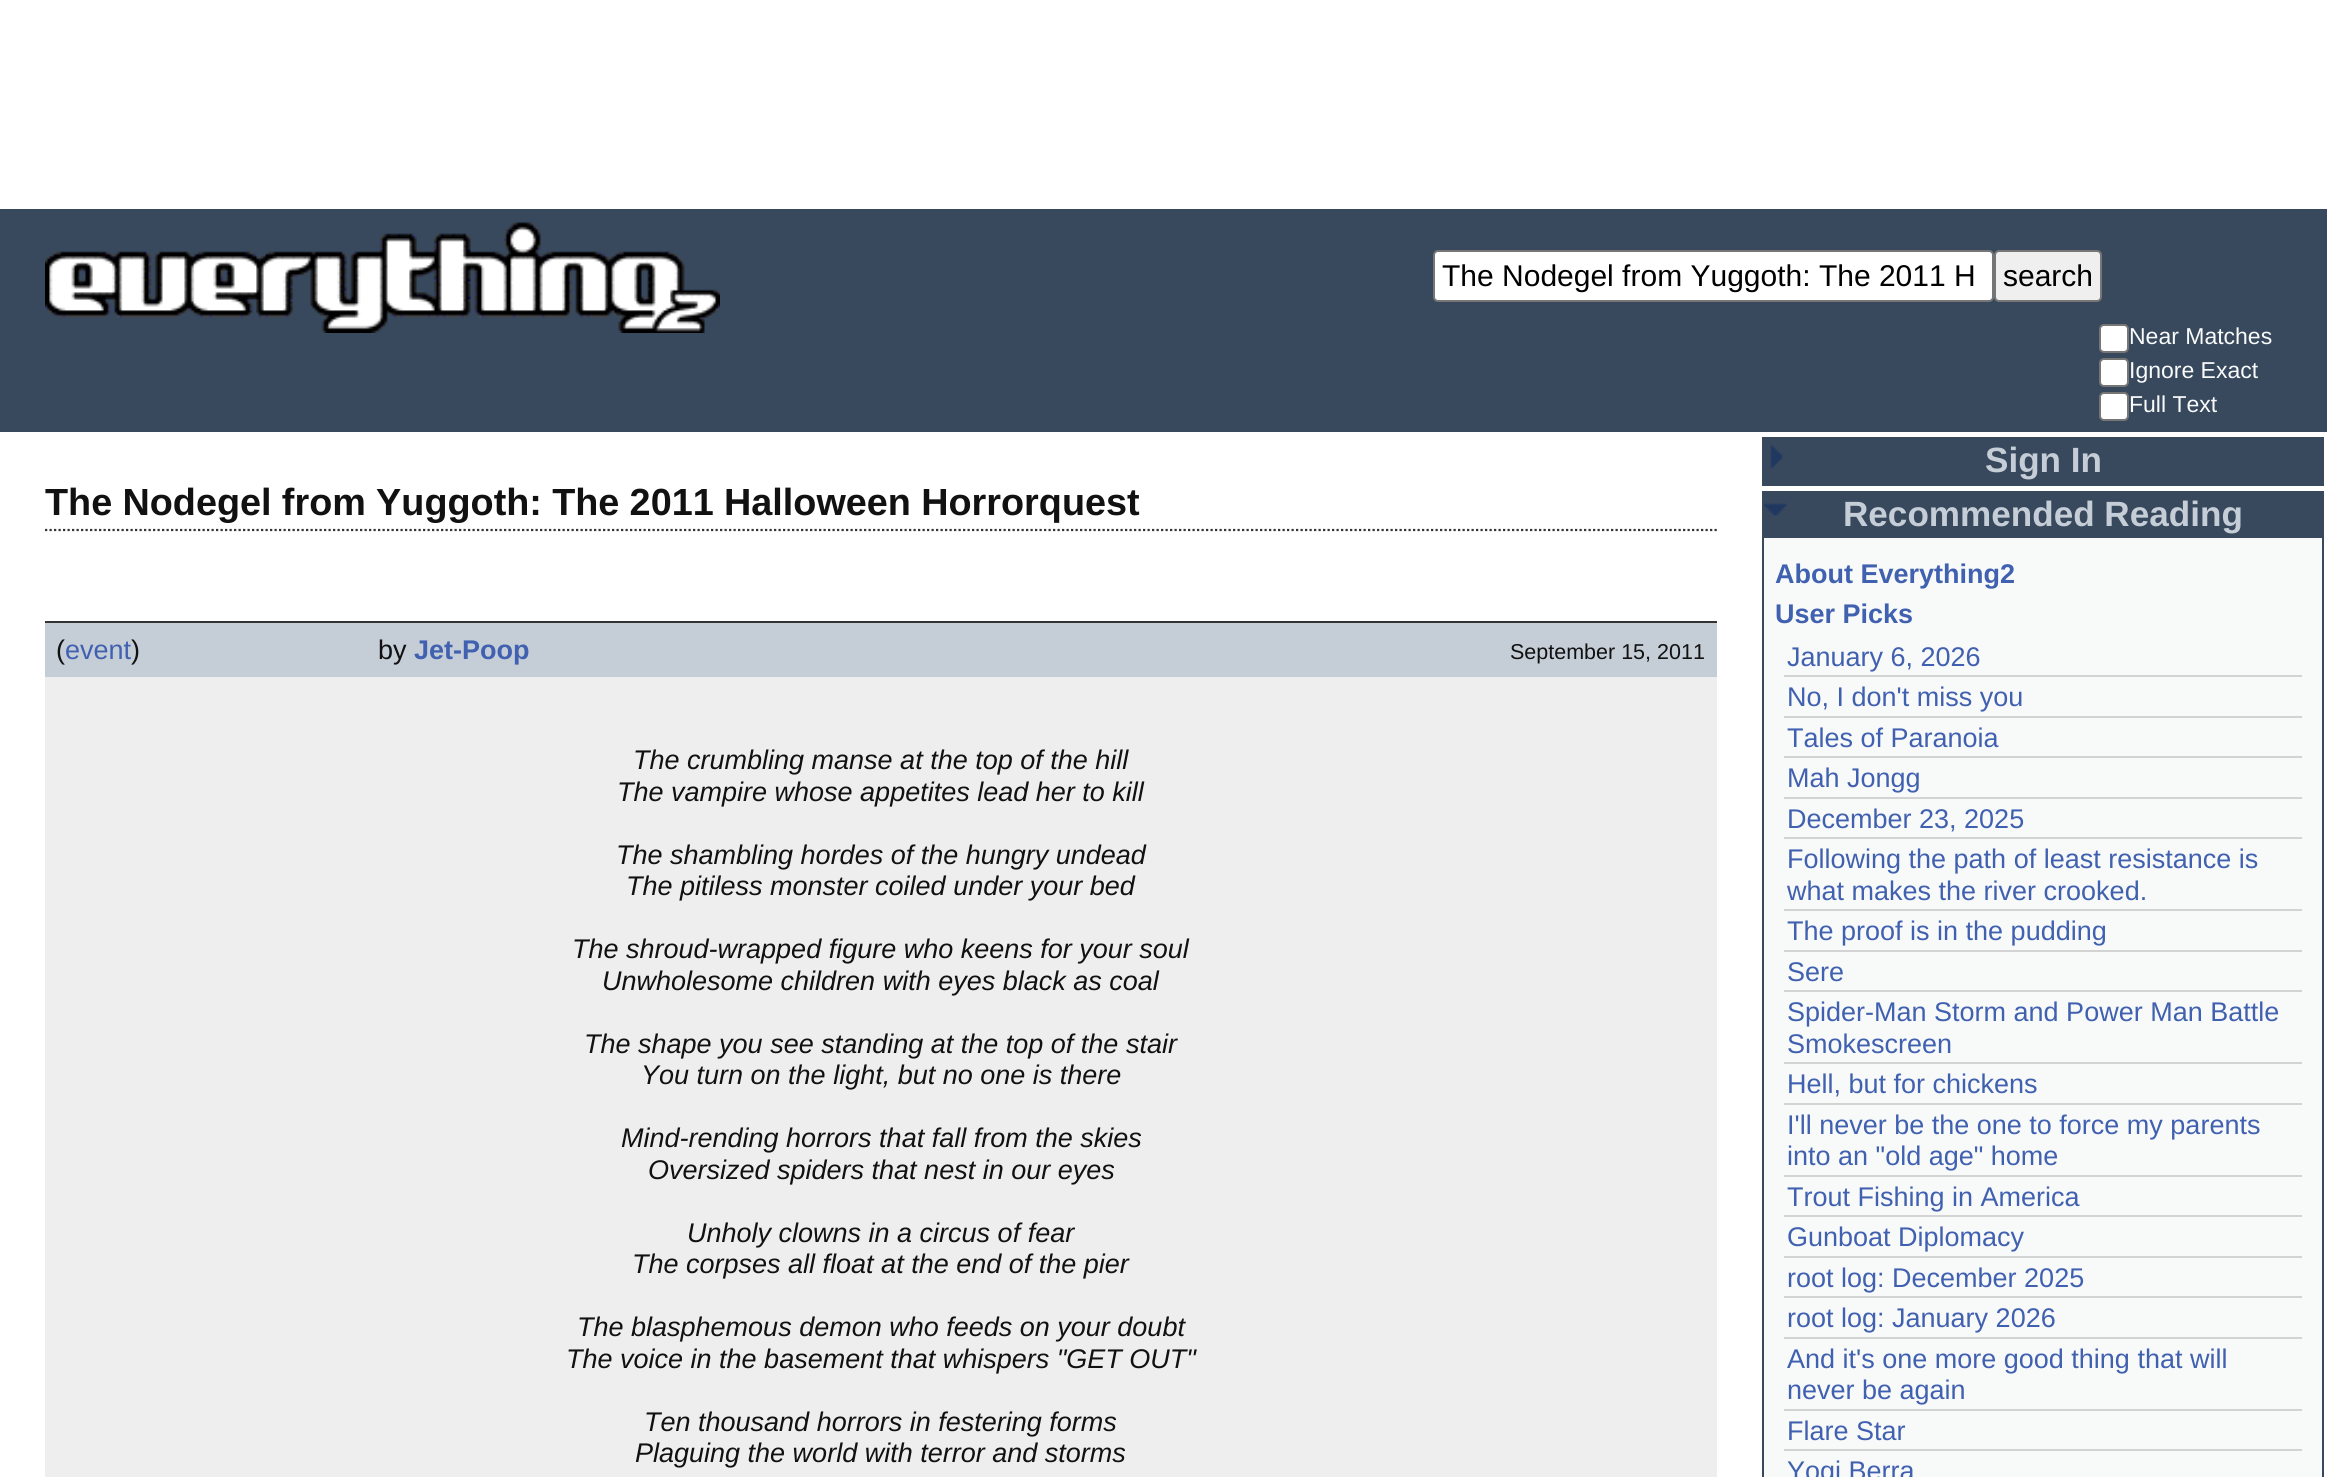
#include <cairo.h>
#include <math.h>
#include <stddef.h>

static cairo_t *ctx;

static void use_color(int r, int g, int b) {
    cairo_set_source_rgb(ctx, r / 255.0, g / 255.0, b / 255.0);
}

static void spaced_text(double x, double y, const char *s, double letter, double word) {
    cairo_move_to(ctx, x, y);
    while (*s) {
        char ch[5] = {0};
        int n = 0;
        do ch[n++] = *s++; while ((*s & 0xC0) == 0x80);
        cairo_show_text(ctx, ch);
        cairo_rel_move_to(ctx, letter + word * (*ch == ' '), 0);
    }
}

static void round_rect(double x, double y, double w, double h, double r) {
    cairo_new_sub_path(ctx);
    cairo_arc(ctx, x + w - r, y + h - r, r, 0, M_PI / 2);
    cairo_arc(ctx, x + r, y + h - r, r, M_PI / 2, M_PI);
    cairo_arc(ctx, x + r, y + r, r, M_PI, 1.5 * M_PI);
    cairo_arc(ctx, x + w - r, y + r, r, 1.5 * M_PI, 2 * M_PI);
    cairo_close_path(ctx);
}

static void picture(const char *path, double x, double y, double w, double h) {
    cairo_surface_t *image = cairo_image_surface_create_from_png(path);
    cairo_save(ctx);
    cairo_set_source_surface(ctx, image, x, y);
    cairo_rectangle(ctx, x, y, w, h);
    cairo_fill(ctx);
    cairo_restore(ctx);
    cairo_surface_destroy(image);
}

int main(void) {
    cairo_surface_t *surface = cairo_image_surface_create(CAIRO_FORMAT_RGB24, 2327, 1477);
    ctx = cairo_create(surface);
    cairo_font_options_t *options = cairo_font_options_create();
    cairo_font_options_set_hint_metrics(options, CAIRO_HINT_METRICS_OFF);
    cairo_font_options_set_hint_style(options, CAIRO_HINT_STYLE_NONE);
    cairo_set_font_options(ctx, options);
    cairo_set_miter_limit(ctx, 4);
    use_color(255, 255, 255);
    cairo_paint(ctx);
    use_color(56, 73, 94);
    cairo_rectangle(ctx, 0, 209, 2327, 223);
    cairo_fill(ctx);
    picture("img1.png", 45, 222, 675, 111);
    use_color(255, 255, 255);
    round_rect(1434, 251, 559, 50, 4);
    cairo_fill_preserve(ctx);
    use_color(118, 118, 118);
    cairo_stroke(ctx);
    cairo_select_font_face(ctx, "Liberation Sans", CAIRO_FONT_SLANT_NORMAL, CAIRO_FONT_WEIGHT_NORMAL);
    cairo_set_font_size(ctx, 30);
    use_color(0, 0, 0);
    cairo_move_to(ctx, 1442, 286);
    cairo_show_text(ctx, "The Nodegel from Yuggoth: The 2011 H");
    use_color(239, 239, 239);
    round_rect(1995, 251, 106, 50, 4);
    cairo_fill_preserve(ctx);
    use_color(118, 118, 118);
    cairo_stroke(ctx);
    use_color(0, 0, 0);
    cairo_move_to(ctx, 2003, 286);
    cairo_show_text(ctx, "search");
    use_color(255, 255, 255);
    round_rect(2100, 325, 28, 27, 4);
    cairo_fill_preserve(ctx);
    use_color(118, 118, 118);
    cairo_stroke(ctx);
    cairo_set_font_size(ctx, 23);
    use_color(249, 250, 250);
    cairo_move_to(ctx, 2129, 344);
    cairo_show_text(ctx, "Near Matches");
    use_color(255, 255, 255);
    round_rect(2100, 359, 28, 27, 4);
    cairo_fill_preserve(ctx);
    use_color(118, 118, 118);
    cairo_stroke(ctx);
    use_color(249, 250, 250);
    cairo_move_to(ctx, 2129, 378);
    cairo_show_text(ctx, "Ignore Exact");
    use_color(255, 255, 255);
    round_rect(2100, 393, 28, 27, 4);
    cairo_fill_preserve(ctx);
    use_color(118, 118, 118);
    cairo_stroke(ctx);
    use_color(249, 250, 250);
    cairo_move_to(ctx, 2129, 412);
    cairo_show_text(ctx, "Full Text");
    cairo_new_path(ctx);
    cairo_move_to(ctx, 45, 530);
    cairo_line_to(ctx, 1717, 530);
    use_color(51, 51, 51);
    cairo_set_line_width(ctx, 2.2);
    cairo_set_dash(ctx, (double[]){2.25, 2.25}, 2, 0);
    cairo_stroke(ctx);
    cairo_select_font_face(ctx, "Liberation Sans", CAIRO_FONT_SLANT_NORMAL, CAIRO_FONT_WEIGHT_BOLD);
    cairo_set_font_size(ctx, 37.8);
    use_color(17, 17, 17);
    spaced_text(45, 515, "The Nodegel from Yuggoth: The 2011 Halloween Horrorquest", 0, -0.25);
    use_color(197, 205, 215);
    cairo_rectangle(ctx, 45, 623, 1672, 54);
    cairo_fill(ctx);
    use_color(51, 51, 51);
    cairo_rectangle(ctx, 45, 621, 1672, 2);
    cairo_fill(ctx);
    cairo_select_font_face(ctx, "Liberation Sans", CAIRO_FONT_SLANT_NORMAL, CAIRO_FONT_WEIGHT_NORMAL);
    cairo_set_font_size(ctx, 27);
    use_color(17, 17, 17);
    cairo_move_to(ctx, 56, 659);
    cairo_show_text(ctx, "(");
    use_color(64, 96, 176);
    cairo_move_to(ctx, 65, 659);
    cairo_show_text(ctx, "event");
    use_color(17, 17, 17);
    cairo_move_to(ctx, 131, 659);
    cairo_show_text(ctx, ")");
    cairo_move_to(ctx, 378, 659);
    cairo_show_text(ctx, "by");
    cairo_select_font_face(ctx, "Liberation Sans", CAIRO_FONT_SLANT_NORMAL, CAIRO_FONT_WEIGHT_BOLD);
    use_color(64, 96, 176);
    cairo_move_to(ctx, 414, 659);
    cairo_show_text(ctx, "Jet-Poop");
    cairo_select_font_face(ctx, "Liberation Sans", CAIRO_FONT_SLANT_NORMAL, CAIRO_FONT_WEIGHT_NORMAL);
    cairo_set_font_size(ctx, 21.5);
    use_color(17, 17, 17);
    cairo_move_to(ctx, 1510, 659);
    cairo_show_text(ctx, "September 15, 2011");
    use_color(238, 238, 238);
    cairo_rectangle(ctx, 45, 677, 1672, 800);
    cairo_fill(ctx);
    cairo_select_font_face(ctx, "Liberation Sans", CAIRO_FONT_SLANT_ITALIC, CAIRO_FONT_WEIGHT_NORMAL);
    cairo_set_font_size(ctx, 27);
    use_color(17, 17, 17);
    cairo_move_to(ctx, 633, 769);
    cairo_show_text(ctx, "The crumbling manse at the top of the hill");
    cairo_move_to(ctx, 617, 801);
    cairo_show_text(ctx, "The vampire whose appetites lead her to kill");
    cairo_move_to(ctx, 616, 864);
    cairo_show_text(ctx, "The shambling hordes of the hungry undead");
    cairo_move_to(ctx, 626, 895);
    cairo_show_text(ctx, "The pitiless monster coiled under your bed");
    cairo_move_to(ctx, 572, 958);
    cairo_show_text(ctx, "The shroud-wrapped figure who keens for your soul");
    cairo_move_to(ctx, 602, 990);
    cairo_show_text(ctx, "Unwholesome children with eyes black as coal");
    cairo_move_to(ctx, 584, 1053);
    cairo_show_text(ctx, "The shape you see standing at the top of the stair");
    cairo_move_to(ctx, 641, 1084);
    cairo_show_text(ctx, "You turn on the light, but no one is there");
    cairo_move_to(ctx, 621, 1147);
    cairo_show_text(ctx, "Mind-rending horrors that fall from the skies");
    cairo_move_to(ctx, 648, 1179);
    cairo_show_text(ctx, "Oversized spiders that nest in our eyes");
    cairo_move_to(ctx, 687, 1242);
    cairo_show_text(ctx, "Unholy clowns in a circus of fear");
    cairo_move_to(ctx, 632, 1273);
    cairo_show_text(ctx, "The corpses all float at the end of the pier");
    cairo_move_to(ctx, 577, 1336);
    cairo_show_text(ctx, "The blasphemous demon who feeds on your doubt");
    cairo_move_to(ctx, 566, 1368);
    cairo_show_text(ctx, "The voice in the basement that whispers \"GET OUT\"");
    cairo_move_to(ctx, 644, 1431);
    cairo_show_text(ctx, "Ten thousand horrors in festering forms");
    cairo_move_to(ctx, 635, 1462);
    cairo_show_text(ctx, "Plaguing the world with terror and storms");
    cairo_rectangle(ctx, 1763, 438, 560, 47);
    use_color(56, 73, 94);
    cairo_set_line_width(ctx, 2);
    cairo_set_dash(ctx, NULL, 0, 0);
    cairo_stroke(ctx);
    cairo_rectangle(ctx, 1764, 439, 558, 45);
    cairo_fill(ctx);
    picture("img2.png", 1770, 445, 13, 24);
    cairo_select_font_face(ctx, "Liberation Sans", CAIRO_FONT_SLANT_NORMAL, CAIRO_FONT_WEIGHT_BOLD);
    cairo_set_font_size(ctx, 35.1);
    use_color(197, 205, 215);
    cairo_move_to(ctx, 1985, 472);
    cairo_show_text(ctx, "Sign In");
    use_color(248, 249, 249);
    cairo_rectangle(ctx, 1764, 538, 558, 939);
    cairo_fill(ctx);
    cairo_rectangle(ctx, 1763, 492, 560, 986);
    use_color(56, 73, 94);
    cairo_stroke(ctx);
    cairo_rectangle(ctx, 1764, 493, 558, 45);
    cairo_fill(ctx);
    picture("img3.png", 1764, 503, 23, 13);
    use_color(197, 205, 215);
    cairo_move_to(ctx, 1843, 526);
    cairo_show_text(ctx, "Recommended Reading");
    cairo_set_font_size(ctx, 27);
    use_color(64, 96, 176);
    cairo_move_to(ctx, 1775, 583);
    cairo_show_text(ctx, "About Everything2");
    cairo_move_to(ctx, 1775, 623);
    cairo_show_text(ctx, "User Picks");
    use_color(211, 211, 211);
    cairo_rectangle(ctx, 1784, 675, 518, 2);
    cairo_fill(ctx);
    cairo_select_font_face(ctx, "Liberation Sans", CAIRO_FONT_SLANT_NORMAL, CAIRO_FONT_WEIGHT_NORMAL);
    use_color(64, 96, 176);
    cairo_move_to(ctx, 1787, 666);
    cairo_show_text(ctx, "January 6, 2026");
    use_color(211, 211, 211);
    cairo_rectangle(ctx, 1784, 716, 518, 2);
    cairo_fill(ctx);
    use_color(64, 96, 176);
    cairo_move_to(ctx, 1787, 706);
    cairo_show_text(ctx, "No, I don't miss you");
    use_color(211, 211, 211);
    cairo_rectangle(ctx, 1784, 756, 518, 2);
    cairo_fill(ctx);
    use_color(64, 96, 176);
    cairo_move_to(ctx, 1787, 747);
    cairo_show_text(ctx, "Tales of Paranoia");
    use_color(211, 211, 211);
    cairo_rectangle(ctx, 1784, 797, 518, 2);
    cairo_fill(ctx);
    use_color(64, 96, 176);
    cairo_move_to(ctx, 1787, 787);
    cairo_show_text(ctx, "Mah Jongg");
    use_color(211, 211, 211);
    cairo_rectangle(ctx, 1784, 837, 518, 2);
    cairo_fill(ctx);
    use_color(64, 96, 176);
    cairo_move_to(ctx, 1787, 828);
    cairo_show_text(ctx, "December 23, 2025");
    use_color(211, 211, 211);
    cairo_rectangle(ctx, 1784, 909, 518, 2);
    cairo_fill(ctx);
    use_color(64, 96, 176);
    cairo_move_to(ctx, 1787, 868);
    cairo_show_text(ctx, "Following the path of least resistance is");
    cairo_move_to(ctx, 1787, 900);
    cairo_show_text(ctx, "what makes the river crooked.");
    use_color(211, 211, 211);
    cairo_rectangle(ctx, 1784, 950, 518, 2);
    cairo_fill(ctx);
    use_color(64, 96, 176);
    cairo_move_to(ctx, 1787, 940);
    cairo_show_text(ctx, "The proof is in the pudding");
    use_color(211, 211, 211);
    cairo_rectangle(ctx, 1784, 990, 518, 2);
    cairo_fill(ctx);
    use_color(64, 96, 176);
    cairo_move_to(ctx, 1787, 981);
    cairo_show_text(ctx, "Sere");
    use_color(211, 211, 211);
    cairo_rectangle(ctx, 1784, 1062, 518, 2);
    cairo_fill(ctx);
    use_color(64, 96, 176);
    cairo_move_to(ctx, 1787, 1021);
    cairo_show_text(ctx, "Spider-Man Storm and Power Man Battle");
    cairo_move_to(ctx, 1787, 1053);
    cairo_show_text(ctx, "Smokescreen");
    use_color(211, 211, 211);
    cairo_rectangle(ctx, 1784, 1103, 518, 2);
    cairo_fill(ctx);
    use_color(64, 96, 176);
    cairo_move_to(ctx, 1787, 1093);
    cairo_show_text(ctx, "Hell, but for chickens");
    use_color(211, 211, 211);
    cairo_rectangle(ctx, 1784, 1175, 518, 2);
    cairo_fill(ctx);
    use_color(64, 96, 176);
    cairo_move_to(ctx, 1787, 1134);
    cairo_show_text(ctx, "I'll never be the one to force my parents");
    cairo_move_to(ctx, 1787, 1165);
    cairo_show_text(ctx, "into an \"old age\" home");
    use_color(211, 211, 211);
    cairo_rectangle(ctx, 1784, 1215, 518, 2);
    cairo_fill(ctx);
    use_color(64, 96, 176);
    cairo_move_to(ctx, 1787, 1206);
    cairo_show_text(ctx, "Trout Fishing in America");
    use_color(211, 211, 211);
    cairo_rectangle(ctx, 1784, 1256, 518, 2);
    cairo_fill(ctx);
    use_color(64, 96, 176);
    cairo_move_to(ctx, 1787, 1246);
    cairo_show_text(ctx, "Gunboat Diplomacy");
    use_color(211, 211, 211);
    cairo_rectangle(ctx, 1784, 1296, 518, 2);
    cairo_fill(ctx);
    use_color(64, 96, 176);
    cairo_move_to(ctx, 1787, 1287);
    cairo_show_text(ctx, "root log: December 2025");
    use_color(211, 211, 211);
    cairo_rectangle(ctx, 1784, 1337, 518, 2);
    cairo_fill(ctx);
    use_color(64, 96, 176);
    cairo_move_to(ctx, 1787, 1327);
    cairo_show_text(ctx, "root log: January 2026");
    use_color(211, 211, 211);
    cairo_rectangle(ctx, 1784, 1409, 518, 2);
    cairo_fill(ctx);
    use_color(64, 96, 176);
    cairo_move_to(ctx, 1787, 1368);
    cairo_show_text(ctx, "And it's one more good thing that will");
    cairo_move_to(ctx, 1787, 1399);
    cairo_show_text(ctx, "never be again");
    use_color(211, 211, 211);
    cairo_rectangle(ctx, 1784, 1449, 518, 2);
    cairo_fill(ctx);
    use_color(64, 96, 176);
    cairo_move_to(ctx, 1787, 1440);
    cairo_show_text(ctx, "Flare Star");
    cairo_move_to(ctx, 1787, 1480);
    cairo_show_text(ctx, "Yogi Berra");
    cairo_surface_write_to_png(surface, "result.png");
    cairo_font_options_destroy(options);
    cairo_destroy(ctx);
    cairo_surface_destroy(surface);
    return 0;
}
